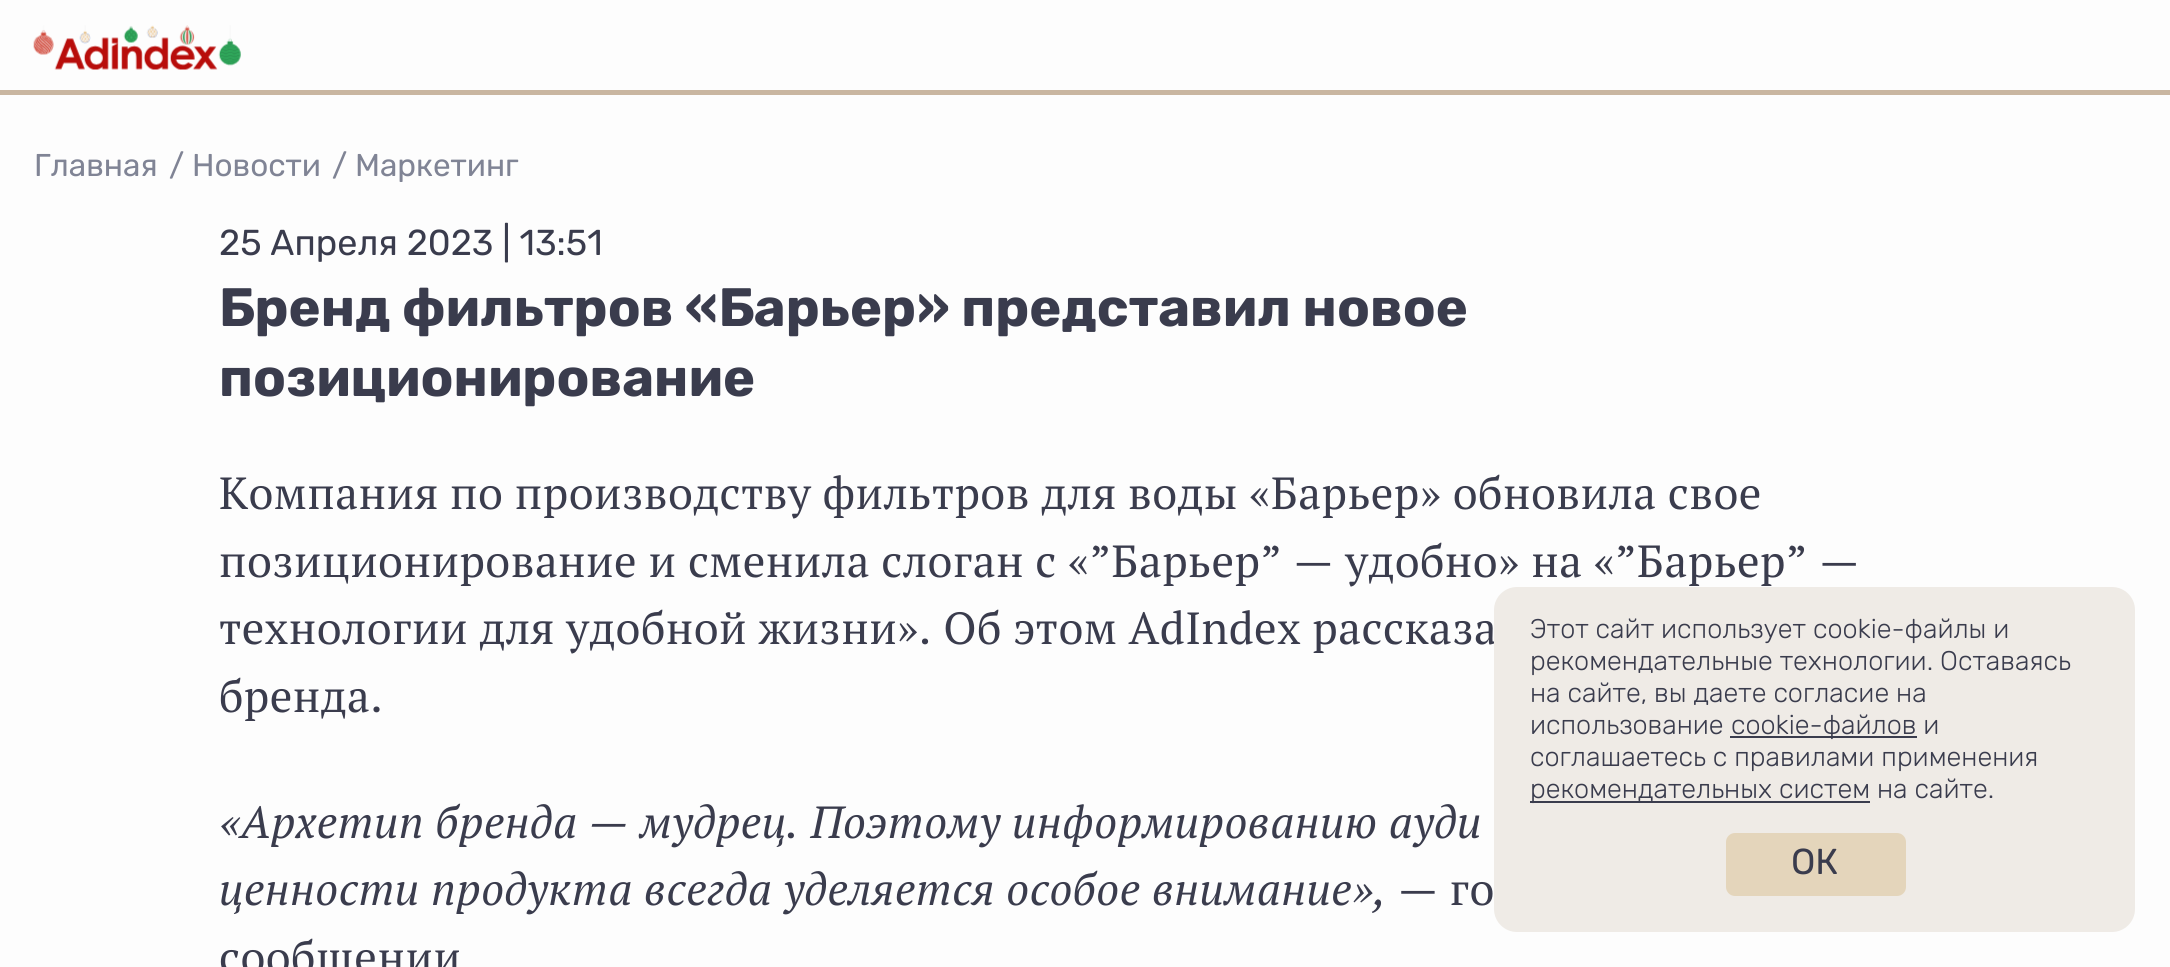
#include <cairo.h>
#include <math.h>
#include <stddef.h>

static cairo_t *ctx;

static void use_color(int r, int g, int b) {
    cairo_set_source_rgb(ctx, r / 255.0, g / 255.0, b / 255.0);
}

static void spaced_text(double x, double y, const char *s, double letter, double word) {
    cairo_move_to(ctx, x, y);
    while (*s) {
        char ch[5] = {0};
        int n = 0;
        do ch[n++] = *s++; while ((*s & 0xC0) == 0x80);
        cairo_show_text(ctx, ch);
        cairo_rel_move_to(ctx, letter + word * (*ch == ' '), 0);
    }
}

static void round_rect(double x, double y, double w, double h, double r) {
    cairo_new_sub_path(ctx);
    cairo_arc(ctx, x + w - r, y + h - r, r, 0, M_PI / 2);
    cairo_arc(ctx, x + r, y + h - r, r, M_PI / 2, M_PI);
    cairo_arc(ctx, x + r, y + r, r, M_PI, 1.5 * M_PI);
    cairo_arc(ctx, x + w - r, y + r, r, 1.5 * M_PI, 2 * M_PI);
    cairo_close_path(ctx);
}

static void picture(const char *path, double x, double y, double w, double h) {
    cairo_surface_t *image = cairo_image_surface_create_from_png(path);
    cairo_save(ctx);
    cairo_set_source_surface(ctx, image, x, y);
    cairo_rectangle(ctx, x, y, w, h);
    cairo_fill(ctx);
    cairo_restore(ctx);
    cairo_surface_destroy(image);
}

int main(void) {
    cairo_surface_t *surface = cairo_image_surface_create(CAIRO_FORMAT_RGB24, 2170, 967);
    ctx = cairo_create(surface);
    cairo_font_options_t *options = cairo_font_options_create();
    cairo_font_options_set_hint_metrics(options, CAIRO_HINT_METRICS_OFF);
    cairo_font_options_set_hint_style(options, CAIRO_HINT_STYLE_NONE);
    cairo_set_font_options(ctx, options);
    cairo_set_miter_limit(ctx, 4);
    use_color(253, 253, 253);
    cairo_paint(ctx);
    use_color(201, 182, 161);
    cairo_rectangle(ctx, 0, 90, 2170, 5);
    cairo_fill(ctx);
    picture("img1.png", 33, 25, 208, 45);
    cairo_select_font_face(ctx, "Rubik", CAIRO_FONT_SLANT_NORMAL, CAIRO_FONT_WEIGHT_NORMAL);
    cairo_set_font_size(ctx, 31.5);
    use_color(128, 132, 149);
    cairo_move_to(ctx, 34, 176);
    cairo_show_text(ctx, "Главная");
    cairo_move_to(ctx, 169, 176);
    cairo_show_text(ctx, "/ Новости");
    cairo_move_to(ctx, 332, 176);
    cairo_show_text(ctx, "/ Маркетинг");
    cairo_set_font_size(ctx, 36);
    use_color(58, 60, 77);
    cairo_move_to(ctx, 219, 255);
    cairo_show_text(ctx, "25 Апреля 2023 | 13:51");
    cairo_select_font_face(ctx, "Rubik", CAIRO_FONT_SLANT_NORMAL, CAIRO_FONT_WEIGHT_BOLD);
    cairo_set_font_size(ctx, 54);
    cairo_move_to(ctx, 219, 326);
    cairo_show_text(ctx, "Бренд фильтров «Барьер» представил новое");
    cairo_move_to(ctx, 219, 396);
    cairo_show_text(ctx, "позиционирование");
    cairo_select_font_face(ctx, "PT Serif", CAIRO_FONT_SLANT_NORMAL, CAIRO_FONT_WEIGHT_NORMAL);
    cairo_set_font_size(ctx, 45);
    spaced_text(219, 509, "Компания по производству фильтров для воды «Барьер» обновила свое", 0.45, 0);
    spaced_text(219, 577, "позиционирование и сменила слоган с «”Барьер” — удобно» на «”Барьер” —", 0.45, 0);
    spaced_text(219, 644, "технологии для удобной жизни». Об этом AdIndex рассказа", 0.45, 0);
    spaced_text(219, 712, "бренда.", 0.45, 0);
    cairo_select_font_face(ctx, "PT Serif", CAIRO_FONT_SLANT_ITALIC, CAIRO_FONT_WEIGHT_NORMAL);
    spaced_text(219, 838, "«Архетип бренда — мудрец. Поэтому информированию ауди", 0.45, 0);
    spaced_text(219, 905, "ценности продукта всегда уделяется особое внимание»,", 0.45, 0);
    cairo_select_font_face(ctx, "PT Serif", CAIRO_FONT_SLANT_NORMAL, CAIRO_FONT_WEIGHT_NORMAL);
    spaced_text(1398, 905, "— го", 0.45, 0);
    spaced_text(219, 973, "сообщении", 0.45, 0);
    use_color(239, 235, 230);
    round_rect(1494, 587, 641, 345, 23);
    cairo_fill(ctx);
    cairo_select_font_face(ctx, "Rubik Light", CAIRO_FONT_SLANT_NORMAL, CAIRO_FONT_WEIGHT_NORMAL);
    cairo_set_font_size(ctx, 27);
    use_color(58, 60, 77);
    cairo_move_to(ctx, 1530, 638);
    cairo_show_text(ctx, "Этот сайт использует cookie-файлы и");
    cairo_move_to(ctx, 1530, 670);
    cairo_show_text(ctx, "рекомендательные технологии. Оставаясь");
    cairo_move_to(ctx, 1530, 702);
    cairo_show_text(ctx, "на сайте, вы даете согласие на");
    cairo_move_to(ctx, 1530, 734);
    cairo_show_text(ctx, "использование");
    cairo_rectangle(ctx, 1730, 736, 187, 2);
    cairo_fill(ctx);
    cairo_move_to(ctx, 1731, 734);
    cairo_show_text(ctx, "cookie-файлов и");
    cairo_move_to(ctx, 1530, 766);
    cairo_show_text(ctx, "соглашаетесь с правилами применения");
    cairo_rectangle(ctx, 1530, 801, 340, 2);
    cairo_fill(ctx);
    cairo_move_to(ctx, 1530, 798);
    cairo_show_text(ctx, "рекомендательных систем на сайте.");
    use_color(228, 213, 187);
    round_rect(1726, 833, 180, 63, 9);
    cairo_fill(ctx);
    cairo_select_font_face(ctx, "Rubik", CAIRO_FONT_SLANT_NORMAL, CAIRO_FONT_WEIGHT_NORMAL);
    cairo_set_font_size(ctx, 36);
    use_color(58, 60, 77);
    cairo_move_to(ctx, 1791, 874);
    cairo_show_text(ctx, "ОК");
    cairo_surface_write_to_png(surface, "result.png");
    cairo_font_options_destroy(options);
    cairo_destroy(ctx);
    cairo_surface_destroy(surface);
    return 0;
}
